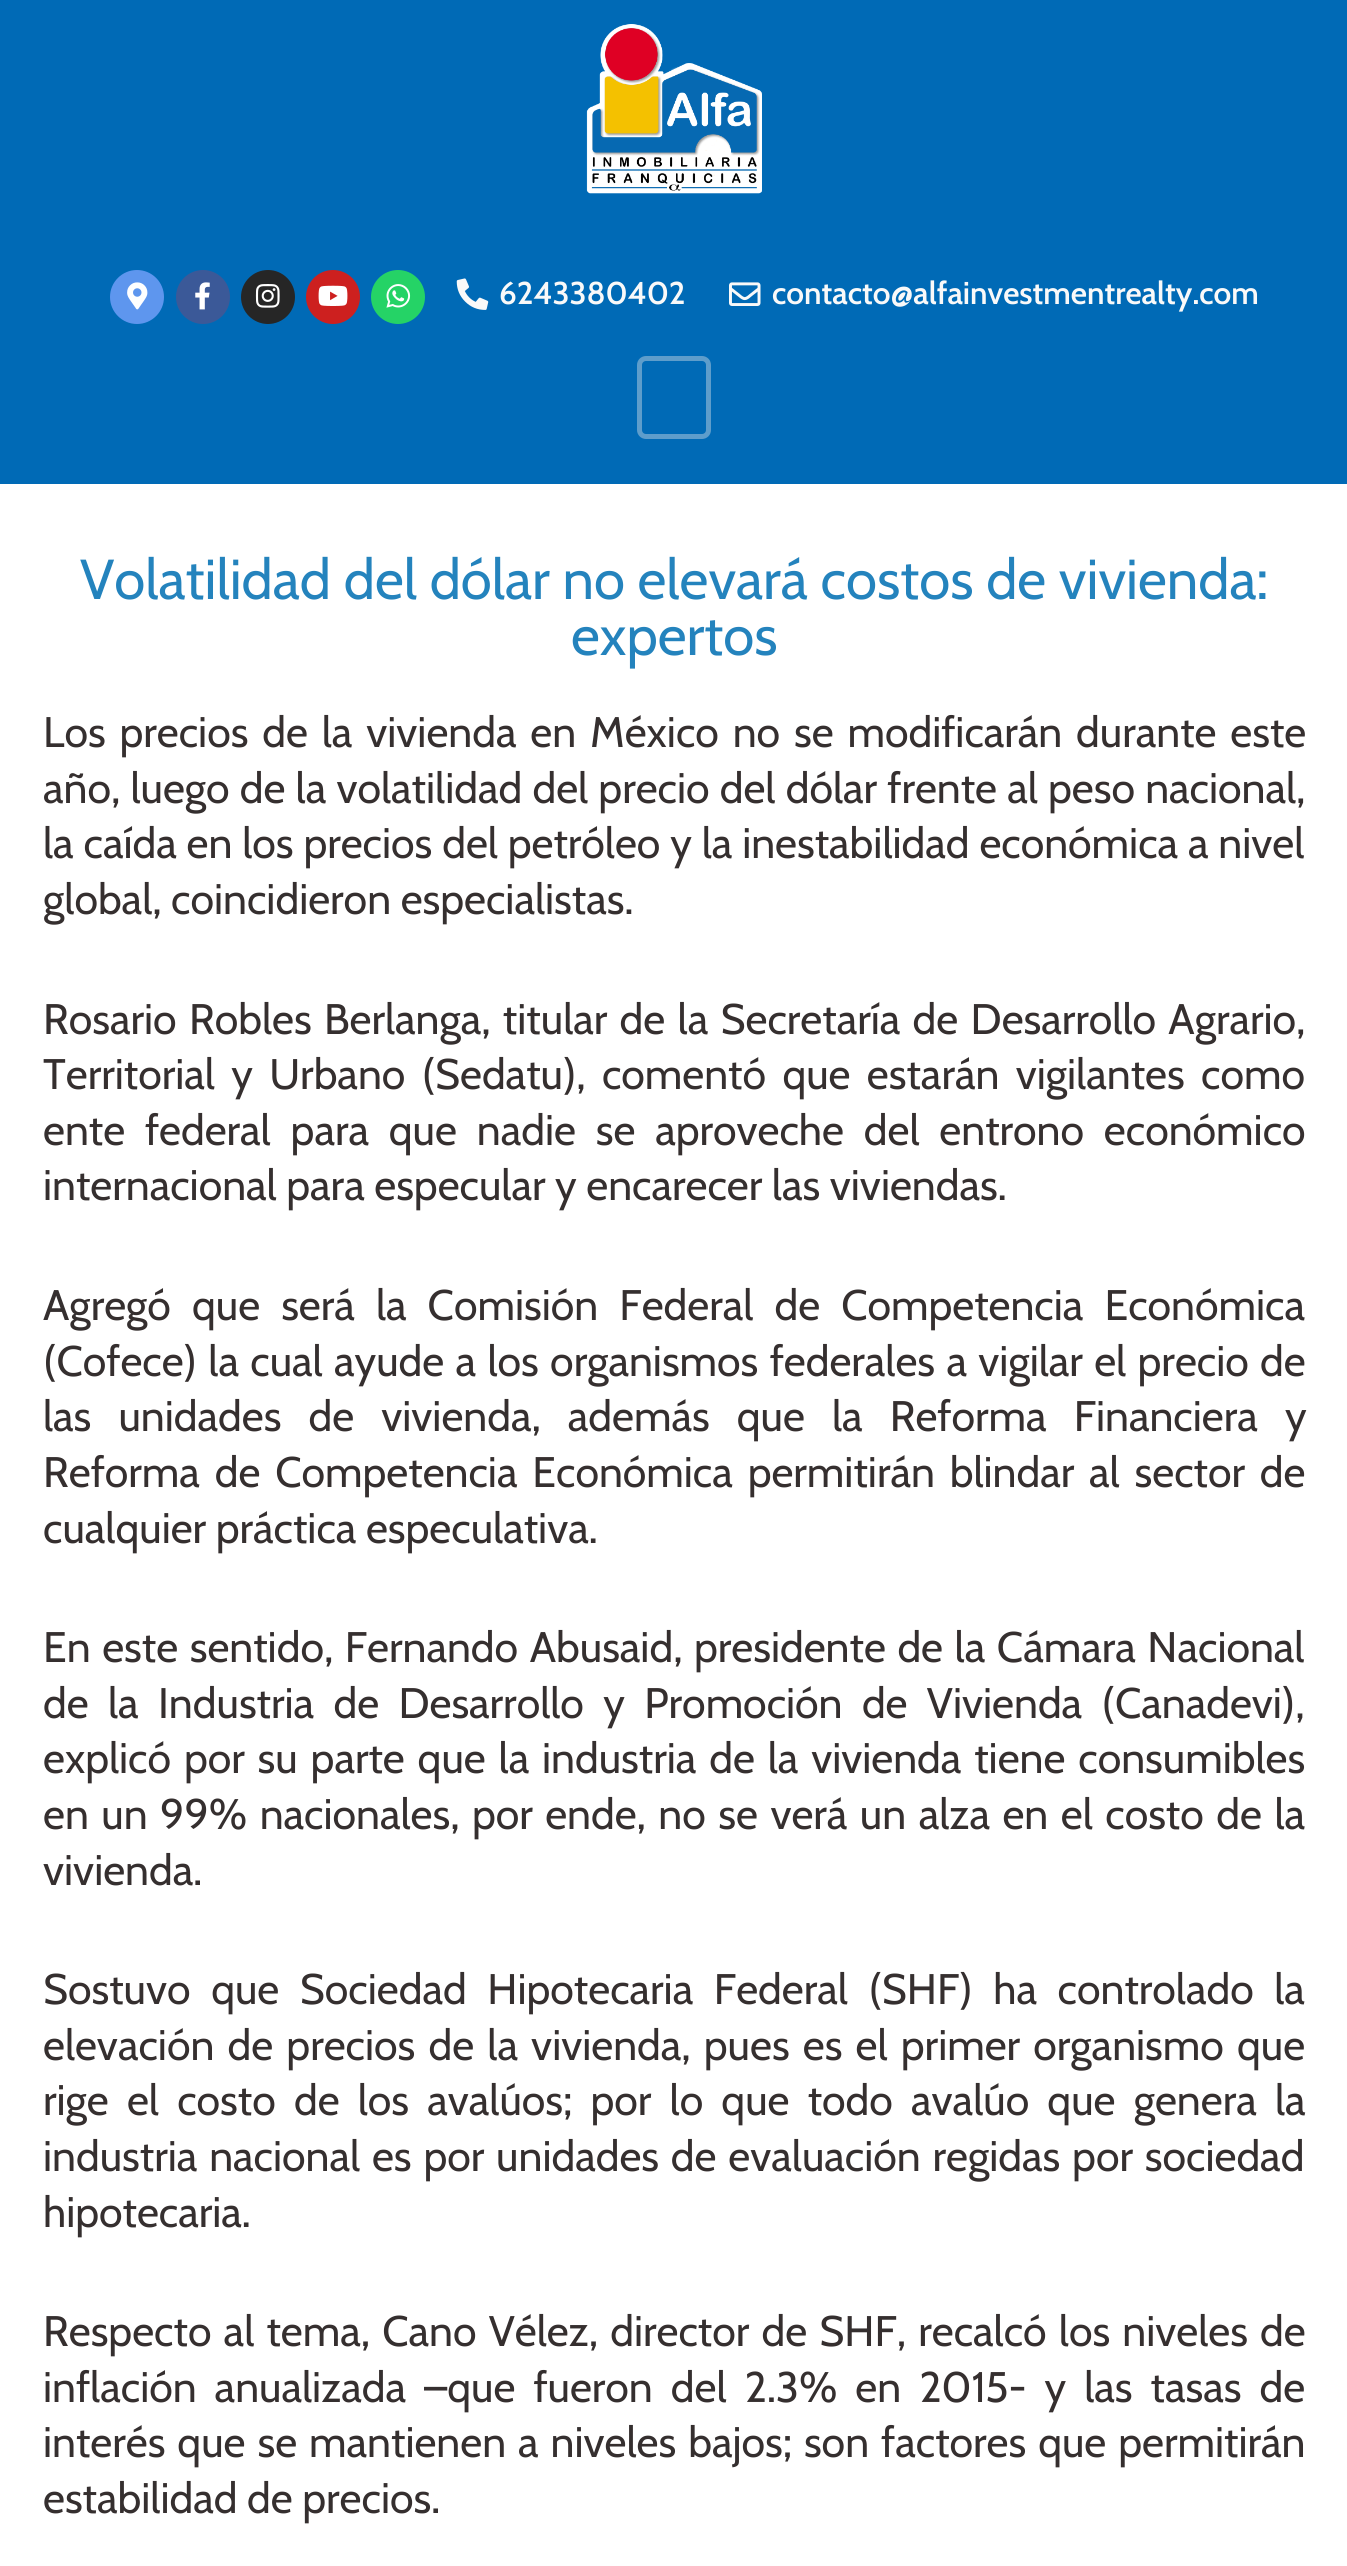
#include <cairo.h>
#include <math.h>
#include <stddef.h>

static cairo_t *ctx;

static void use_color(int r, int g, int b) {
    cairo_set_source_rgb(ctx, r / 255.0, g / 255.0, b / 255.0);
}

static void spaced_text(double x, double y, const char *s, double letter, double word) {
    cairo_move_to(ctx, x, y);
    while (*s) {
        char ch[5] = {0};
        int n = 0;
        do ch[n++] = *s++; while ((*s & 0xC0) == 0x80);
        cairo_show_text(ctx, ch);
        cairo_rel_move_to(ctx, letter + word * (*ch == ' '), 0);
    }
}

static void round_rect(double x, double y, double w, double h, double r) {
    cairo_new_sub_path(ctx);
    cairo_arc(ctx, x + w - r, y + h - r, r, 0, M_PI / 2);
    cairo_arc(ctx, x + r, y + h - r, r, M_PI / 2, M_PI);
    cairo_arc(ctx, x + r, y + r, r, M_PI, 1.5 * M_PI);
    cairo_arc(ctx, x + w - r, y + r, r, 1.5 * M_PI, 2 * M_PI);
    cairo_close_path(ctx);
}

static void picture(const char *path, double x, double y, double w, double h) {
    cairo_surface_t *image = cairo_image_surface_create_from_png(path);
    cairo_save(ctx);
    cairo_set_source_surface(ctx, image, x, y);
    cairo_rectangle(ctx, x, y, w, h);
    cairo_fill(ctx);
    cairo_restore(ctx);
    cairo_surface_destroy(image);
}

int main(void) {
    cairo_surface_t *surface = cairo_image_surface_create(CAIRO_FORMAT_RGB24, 1347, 2566);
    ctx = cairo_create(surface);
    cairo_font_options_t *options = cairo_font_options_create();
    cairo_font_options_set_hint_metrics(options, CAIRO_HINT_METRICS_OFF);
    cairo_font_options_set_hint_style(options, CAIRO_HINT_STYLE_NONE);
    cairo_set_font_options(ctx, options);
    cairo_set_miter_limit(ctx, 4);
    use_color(255, 255, 255);
    cairo_paint(ctx);
    use_color(0, 106, 182);
    cairo_rectangle(ctx, 0, 0, 1347, 484);
    cairo_fill(ctx);
    picture("img1.png", 586, 24, 176, 170);
    use_color(94, 150, 238);
    cairo_arc(ctx, 137, 297, 27, 0, 2 * M_PI);
    cairo_fill(ctx);
    picture("img2.png", 127, 282, 21, 28);
    use_color(59, 89, 152);
    cairo_arc(ctx, 203, 297, 27, 0, 2 * M_PI);
    cairo_fill(ctx);
    picture("img3.png", 195, 282, 15, 28);
    use_color(38, 38, 38);
    cairo_arc(ctx, 268, 297, 27, 0, 2 * M_PI);
    cairo_fill(ctx);
    picture("img4.png", 255, 284, 25, 24);
    use_color(205, 32, 31);
    cairo_arc(ctx, 333, 297, 27, 0, 2 * M_PI);
    cairo_fill(ctx);
    picture("img5.png", 318, 285, 30, 21);
    use_color(37, 211, 102);
    cairo_arc(ctx, 398, 297, 27, 0, 2 * M_PI);
    cairo_fill(ctx);
    picture("img6.png", 386, 284, 25, 24);
    picture("img7.png", 456, 278, 33, 32);
    cairo_select_font_face(ctx, "Cabin SemiBold", CAIRO_FONT_SLANT_NORMAL, CAIRO_FONT_WEIGHT_NORMAL);
    cairo_set_font_size(ctx, 31.5);
    use_color(249, 249, 249);
    cairo_move_to(ctx, 499, 304);
    cairo_show_text(ctx, "6243380402");
    picture("img8.png", 729, 282, 32, 24);
    cairo_move_to(ctx, 772, 304);
    cairo_show_text(ctx, "contacto@alfainvestmentrealty.com");
    round_rect(639.5, 358.5, 69, 78, 6.5);
    use_color(94, 157, 203);
    cairo_set_line_width(ctx, 5);
    cairo_stroke(ctx);
    cairo_select_font_face(ctx, "Cabin", CAIRO_FONT_SLANT_NORMAL, CAIRO_FONT_WEIGHT_NORMAL);
    cairo_set_font_size(ctx, 56.25);
    use_color(36, 131, 189);
    cairo_move_to(ctx, 80, 599);
    cairo_show_text(ctx, "Volatilidad del dólar no elevará costos de vivienda:");
    cairo_move_to(ctx, 571, 655);
    cairo_show_text(ctx, "expertos");
    cairo_set_font_size(ctx, 42.75);
    use_color(53, 47, 47);
    spaced_text(43, 747, "Los precios de la vivienda en México no se modificarán durante este", 0, 4.25);
    spaced_text(43, 803, "año, luego de la volatilidad del precio del dólar frente al peso nacional,", 0, 0.6);
    spaced_text(43, 858, "la caída en los precios del petróleo y la inestabilidad económica a nivel", 0, 0.25);
    cairo_move_to(ctx, 43, 914);
    cairo_show_text(ctx, "global, coincidieron especialistas.");
    spaced_text(43, 1034, "Rosario Robles Berlanga, titular de la Secretaría de Desarrollo Agrario,", 0, 2.75);
    spaced_text(43, 1089, "Territorial y Urbano (Sedatu), comentó que estarán vigilantes como", 0, 6.75);
    spaced_text(43, 1145, "ente federal para que nadie se aproveche del entrono económico", 0, 10.25);
    cairo_move_to(ctx, 43, 1200);
    cairo_show_text(ctx, "internacional para especular y encarecer las viviendas.");
    spaced_text(43, 1320, "Agregó que será la Comisión Federal de Competencia Económica", 0, 11.5);
    spaced_text(43, 1376, "(Cofece) la cual ayude a los organismos federales a vigilar el precio de", 0, 1.75);
    spaced_text(43, 1431, "las unidades de vivienda, además que la Reforma Financiera y", 0, 17.5);
    spaced_text(43, 1487, "Reforma de Competencia Económica permitirán blindar al sector de", 0, 5.25);
    cairo_move_to(ctx, 43, 1543);
    cairo_show_text(ctx, "cualquier práctica especulativa.");
    spaced_text(43, 1662, "En este sentido, Fernando Abusaid, presidente de la Cámara Nacional", 0, 2);
    spaced_text(43, 1718, "de la Industria de Desarrollo y Promoción de Vivienda (Canadevi),", 0, 9.75);
    spaced_text(43, 1773, "explicó por su parte que la industria de la vivienda tiene consumibles", 0, 3.25);
    spaced_text(43, 1829, "en un 99% nacionales, por ende, no se verá un alza en el costo de la", 0, 2.9);
    cairo_move_to(ctx, 43, 1885);
    cairo_show_text(ctx, "vivienda.");
    spaced_text(43, 2004, "Sostuvo que Sociedad Hipotecaria Federal (SHF) ha controlado la", 0, 11);
    spaced_text(43, 2060, "elevación de precios de la vivienda, pues es el primer organismo que", 0, 3.6);
    spaced_text(43, 2115, "rige el costo de los avalúos; por lo que todo avalúo que genera la", 0, 8.6);
    spaced_text(43, 2171, "industria nacional es por unidades de evaluación regidas por sociedad", 0, 2.25);
    cairo_move_to(ctx, 43, 2227);
    cairo_show_text(ctx, "hipotecaria.");
    spaced_text(43, 2346, "Respecto al tema, Cano Vélez, director de SHF, recalcó los niveles de", 0, 2.6);
    spaced_text(43, 2402, "inflación anualizada –que fueron del 2.3% en 2015- y las tasas de", 0, 8.4);
    spaced_text(43, 2457, "interés que se mantienen a niveles bajos; son factores que permitirán", 0, 2.4);
    cairo_move_to(ctx, 43, 2513);
    cairo_show_text(ctx, "estabilidad de precios.");
    cairo_surface_write_to_png(surface, "result.png");
    cairo_font_options_destroy(options);
    cairo_destroy(ctx);
    cairo_surface_destroy(surface);
    return 0;
}
